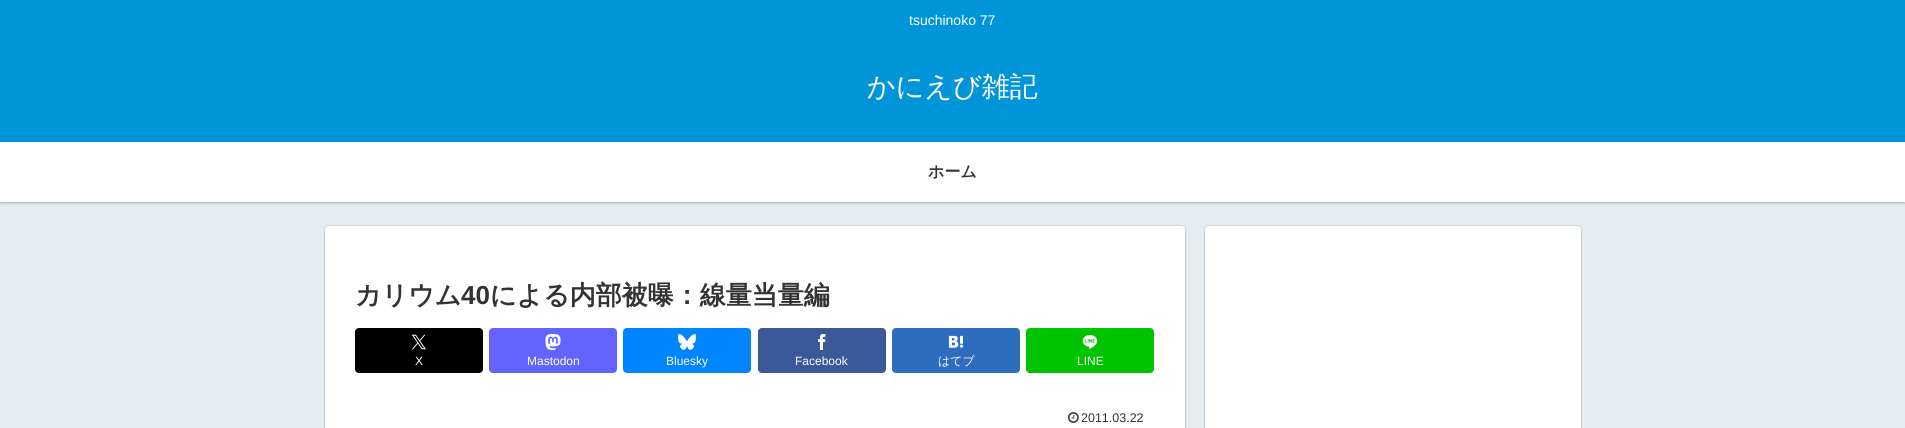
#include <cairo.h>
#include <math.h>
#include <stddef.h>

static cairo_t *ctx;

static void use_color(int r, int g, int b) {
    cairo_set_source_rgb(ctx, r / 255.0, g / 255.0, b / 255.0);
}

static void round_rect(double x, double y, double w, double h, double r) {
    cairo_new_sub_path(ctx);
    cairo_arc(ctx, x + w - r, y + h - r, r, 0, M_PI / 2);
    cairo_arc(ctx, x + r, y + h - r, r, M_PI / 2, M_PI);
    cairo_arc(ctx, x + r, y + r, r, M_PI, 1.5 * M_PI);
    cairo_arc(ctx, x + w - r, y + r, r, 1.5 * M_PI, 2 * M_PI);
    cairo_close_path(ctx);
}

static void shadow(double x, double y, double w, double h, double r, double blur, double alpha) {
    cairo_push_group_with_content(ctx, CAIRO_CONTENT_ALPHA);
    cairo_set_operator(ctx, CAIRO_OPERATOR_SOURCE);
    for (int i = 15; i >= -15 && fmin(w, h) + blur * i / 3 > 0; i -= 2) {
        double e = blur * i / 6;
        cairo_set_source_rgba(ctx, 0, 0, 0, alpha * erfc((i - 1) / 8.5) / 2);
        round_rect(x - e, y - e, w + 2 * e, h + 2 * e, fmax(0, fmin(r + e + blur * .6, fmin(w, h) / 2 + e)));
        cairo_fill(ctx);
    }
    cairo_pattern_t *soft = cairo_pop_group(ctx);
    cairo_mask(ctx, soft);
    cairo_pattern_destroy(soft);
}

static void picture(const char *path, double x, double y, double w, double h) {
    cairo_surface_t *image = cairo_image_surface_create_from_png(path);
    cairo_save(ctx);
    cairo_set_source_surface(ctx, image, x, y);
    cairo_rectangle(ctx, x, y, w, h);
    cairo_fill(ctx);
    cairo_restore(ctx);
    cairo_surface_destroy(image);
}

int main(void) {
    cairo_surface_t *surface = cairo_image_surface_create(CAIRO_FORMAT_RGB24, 1905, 428);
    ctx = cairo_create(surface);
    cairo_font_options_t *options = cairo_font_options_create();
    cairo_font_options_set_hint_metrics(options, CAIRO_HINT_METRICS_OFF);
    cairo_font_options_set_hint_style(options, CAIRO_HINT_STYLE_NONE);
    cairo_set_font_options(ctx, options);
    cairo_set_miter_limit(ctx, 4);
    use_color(230, 236, 240);
    cairo_paint(ctx);
    use_color(255, 255, 255);
    cairo_rectangle(ctx, 0, 142, 1905, 60);
    cairo_fill(ctx);
    use_color(0, 149, 217);
    cairo_rectangle(ctx, 0, 0, 1905, 142);
    cairo_fill(ctx);
    cairo_select_font_face(ctx, "Liberation Sans", CAIRO_FONT_SLANT_NORMAL, CAIRO_FONT_WEIGHT_NORMAL);
    cairo_set_font_size(ctx, 14);
    use_color(255, 255, 255);
    cairo_move_to(ctx, 909, 25);
    cairo_show_text(ctx, "tsuchinoko 77");
    cairo_select_font_face(ctx, "WenQuanYi Zen Hei Medium", CAIRO_FONT_SLANT_NORMAL, CAIRO_FONT_WEIGHT_NORMAL);
    cairo_set_font_size(ctx, 28);
    cairo_move_to(ctx, 867, 96);
    cairo_show_text(ctx, "かにえび雑記");
    cairo_save(ctx);
    cairo_set_fill_rule(ctx, CAIRO_FILL_RULE_EVEN_ODD);
    cairo_new_path(ctx);
    cairo_move_to(ctx, 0, 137);
    cairo_line_to(ctx, 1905, 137);
    cairo_line_to(ctx, 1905, 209);
    cairo_line_to(ctx, 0, 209);
    cairo_close_path(ctx);
    cairo_move_to(ctx, 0, 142);
    cairo_line_to(ctx, 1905, 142);
    cairo_line_to(ctx, 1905, 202);
    cairo_line_to(ctx, 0, 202);
    cairo_close_path(ctx);
    cairo_clip(ctx);
    use_color(0, 0, 0);
    shadow(0, 143, 1905, 60, 0, 1.5, 0.25);
    cairo_restore(ctx);
    cairo_select_font_face(ctx, "WenQuanYi Zen Hei", CAIRO_FONT_SLANT_NORMAL, CAIRO_FONT_WEIGHT_BOLD);
    cairo_set_font_size(ctx, 16);
    use_color(51, 51, 51);
    cairo_move_to(ctx, 928, 177);
    cairo_show_text(ctx, "ホーム");
    round_rect(324.5, 225.5, 861, 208, 4.5);
    use_color(212, 217, 221);
    cairo_set_line_width(ctx, 1);
    cairo_stroke(ctx);
    use_color(0, 0, 0);
    shadow(325, 228, 860, 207, 4, 1, 0.16);
    use_color(255, 255, 255);
    round_rect(325, 226, 860, 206, 4);
    cairo_fill(ctx);
    cairo_set_font_size(ctx, 26);
    use_color(51, 51, 51);
    cairo_move_to(ctx, 355, 304);
    cairo_show_text(ctx, "カリウム");
    cairo_select_font_face(ctx, "Liberation Sans", CAIRO_FONT_SLANT_NORMAL, CAIRO_FONT_WEIGHT_BOLD);
    cairo_move_to(ctx, 461, 304);
    cairo_show_text(ctx, "40");
    cairo_select_font_face(ctx, "WenQuanYi Zen Hei", CAIRO_FONT_SLANT_NORMAL, CAIRO_FONT_WEIGHT_BOLD);
    cairo_move_to(ctx, 490, 304);
    cairo_show_text(ctx, "による内部被曝：線量当量編");
    use_color(0, 0, 0);
    round_rect(355, 328, 128, 45, 4);
    cairo_fill(ctx);
    picture("img1.png", 411, 334, 15, 16);
    cairo_select_font_face(ctx, "Liberation Sans", CAIRO_FONT_SLANT_NORMAL, CAIRO_FONT_WEIGHT_NORMAL);
    cairo_set_font_size(ctx, 12);
    use_color(255, 255, 255);
    cairo_move_to(ctx, 415, 365);
    cairo_show_text(ctx, "X");
    use_color(99, 100, 255);
    round_rect(489, 328, 128, 45, 4);
    cairo_fill(ctx);
    picture("img2.png", 545, 334, 16, 16);
    use_color(255, 255, 255);
    cairo_move_to(ctx, 527, 365);
    cairo_show_text(ctx, "Mastodon");
    use_color(0, 133, 255);
    round_rect(623, 328, 128, 45, 4);
    cairo_fill(ctx);
    picture("img3.png", 678, 334, 18, 16);
    use_color(255, 255, 255);
    cairo_move_to(ctx, 666, 365);
    cairo_show_text(ctx, "Bluesky");
    use_color(59, 89, 152);
    round_rect(758, 328, 128, 45, 4);
    cairo_fill(ctx);
    picture("img4.png", 818, 334, 8, 16);
    use_color(255, 255, 255);
    cairo_move_to(ctx, 795, 365);
    cairo_show_text(ctx, "Facebook");
    use_color(44, 110, 189);
    round_rect(892, 328, 128, 45, 4);
    cairo_fill(ctx);
    picture("img5.png", 948, 335, 16, 13);
    cairo_select_font_face(ctx, "WenQuanYi Zen Hei Medium", CAIRO_FONT_SLANT_NORMAL, CAIRO_FONT_WEIGHT_NORMAL);
    use_color(255, 255, 255);
    cairo_move_to(ctx, 938, 365);
    cairo_show_text(ctx, "はてブ");
    use_color(0, 195, 0);
    round_rect(1026, 328, 128, 45, 4);
    cairo_fill(ctx);
    picture("img6.png", 1082, 335, 16, 14);
    cairo_select_font_face(ctx, "Liberation Sans", CAIRO_FONT_SLANT_NORMAL, CAIRO_FONT_WEIGHT_NORMAL);
    use_color(255, 255, 255);
    cairo_move_to(ctx, 1077, 365);
    cairo_show_text(ctx, "LINE");
    picture("img7.png", 1068, 412, 11, 11);
    cairo_set_font_size(ctx, 12.5);
    use_color(51, 51, 51);
    cairo_move_to(ctx, 1081, 422);
    cairo_show_text(ctx, "2011.03.22");
    round_rect(1204.5, 225.5, 377, 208, 4.5);
    use_color(212, 217, 221);
    cairo_stroke(ctx);
    use_color(0, 0, 0);
    shadow(1205, 228, 376, 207, 4, 1, 0.16);
    use_color(255, 255, 255);
    round_rect(1205, 226, 376, 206, 4);
    cairo_fill(ctx);
    cairo_surface_write_to_png(surface, "result.png");
    cairo_font_options_destroy(options);
    cairo_destroy(ctx);
    cairo_surface_destroy(surface);
    return 0;
}
